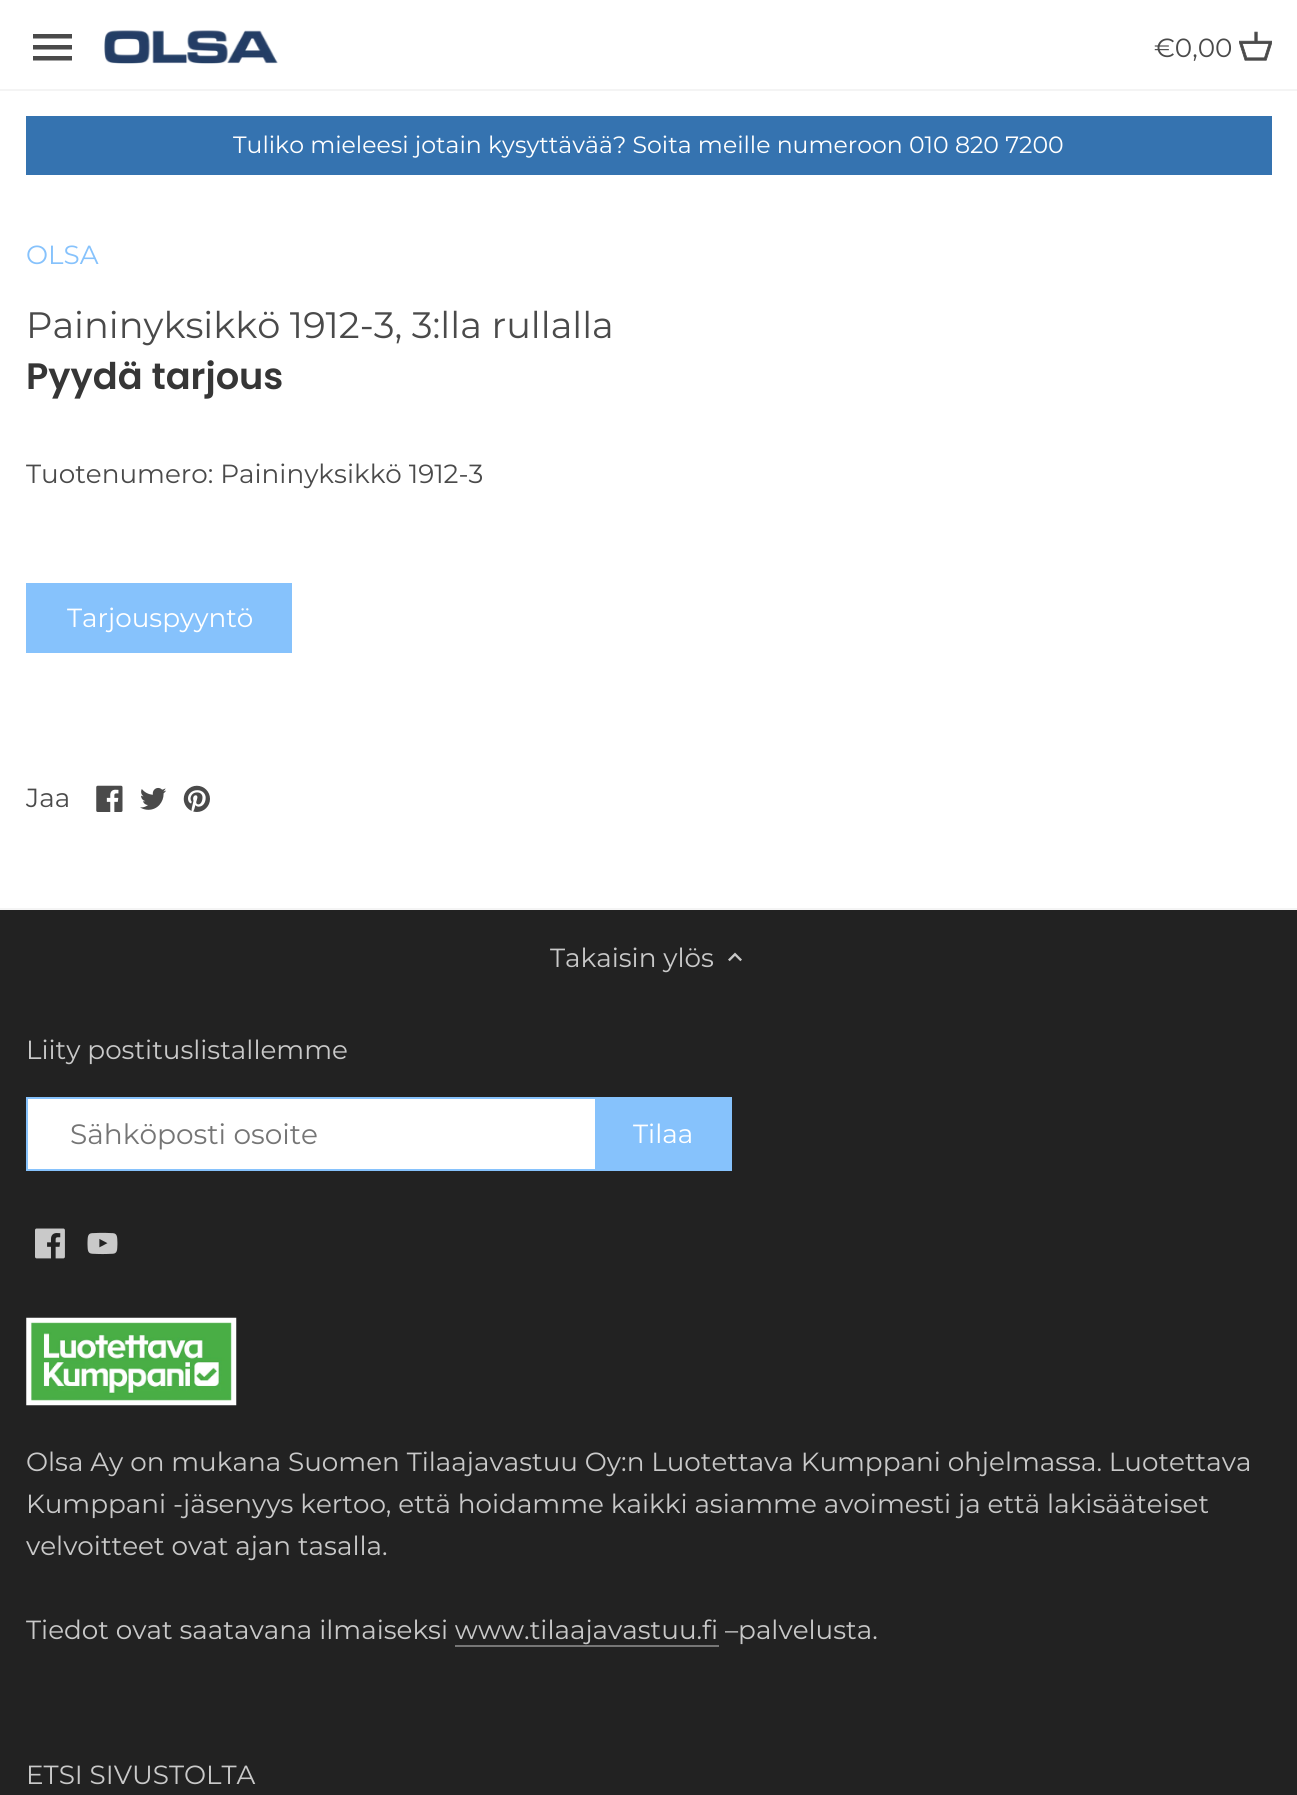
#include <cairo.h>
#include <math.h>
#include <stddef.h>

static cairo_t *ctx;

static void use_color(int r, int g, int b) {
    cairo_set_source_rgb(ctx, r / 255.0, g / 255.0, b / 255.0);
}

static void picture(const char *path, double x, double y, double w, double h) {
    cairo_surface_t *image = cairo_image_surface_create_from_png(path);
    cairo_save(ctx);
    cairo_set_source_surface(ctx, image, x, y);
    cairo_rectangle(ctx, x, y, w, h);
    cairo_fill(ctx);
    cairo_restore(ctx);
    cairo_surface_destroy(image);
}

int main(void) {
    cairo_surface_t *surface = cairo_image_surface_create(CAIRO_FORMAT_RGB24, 1297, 1795);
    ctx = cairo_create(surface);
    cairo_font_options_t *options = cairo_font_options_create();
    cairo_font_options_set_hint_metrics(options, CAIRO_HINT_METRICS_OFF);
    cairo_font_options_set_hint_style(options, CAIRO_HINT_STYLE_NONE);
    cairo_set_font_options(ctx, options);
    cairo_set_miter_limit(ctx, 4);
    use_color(34, 34, 34);
    cairo_paint(ctx);
    use_color(255, 255, 255);
    cairo_rectangle(ctx, 0, 0, 1297, 908);
    cairo_fill(ctx);
    use_color(244, 244, 244);
    cairo_rectangle(ctx, 0, 89, 1297, 2);
    cairo_fill(ctx);
    use_color(74, 74, 74);
    cairo_new_path(ctx);
    cairo_move_to(ctx, 33, 60.5);
    cairo_line_to(ctx, 72, 60.5);
    cairo_line_to(ctx, 72, 56);
    cairo_line_to(ctx, 33, 56);
    cairo_close_path(ctx);
    cairo_move_to(ctx, 33, 49.5);
    cairo_line_to(ctx, 72, 49.5);
    cairo_line_to(ctx, 72, 45);
    cairo_line_to(ctx, 33, 45);
    cairo_close_path(ctx);
    cairo_move_to(ctx, 33, 34);
    cairo_line_to(ctx, 33, 38.5);
    cairo_line_to(ctx, 72, 38.5);
    cairo_line_to(ctx, 72, 34);
    cairo_close_path(ctx);
    cairo_fill(ctx);
    picture("img1.png", 104, 30, 174, 34);
    cairo_select_font_face(ctx, "Montserrat", CAIRO_FONT_SLANT_NORMAL, CAIRO_FONT_WEIGHT_NORMAL);
    cairo_set_font_size(ctx, 26.25);
    cairo_move_to(ctx, 1154, 57);
    cairo_show_text(ctx, "€0,00");
    picture("img2.png", 1239, 31, 33, 30);
    use_color(53, 115, 176);
    cairo_rectangle(ctx, 26, 116, 1246, 59);
    cairo_fill(ctx);
    cairo_set_font_size(ctx, 23.6);
    use_color(255, 255, 255);
    cairo_move_to(ctx, 233, 153);
    cairo_show_text(ctx, "Tuliko mieleesi jotain kysyttävää? Soita meille numeroon 010 820 7200");
    cairo_set_font_size(ctx, 26.25);
    use_color(134, 194, 252);
    cairo_move_to(ctx, 26, 264);
    cairo_show_text(ctx, "OLSA");
    cairo_set_font_size(ctx, 36.75);
    use_color(74, 74, 74);
    cairo_move_to(ctx, 26, 338);
    cairo_show_text(ctx, "Paininyksikkö 1912-3, 3:lla rullalla");
    cairo_select_font_face(ctx, "Poppins SemiBold", CAIRO_FONT_SLANT_NORMAL, CAIRO_FONT_WEIGHT_NORMAL);
    use_color(54, 54, 54);
    cairo_move_to(ctx, 26, 389);
    cairo_show_text(ctx, "Pyydä tarjous");
    cairo_select_font_face(ctx, "Montserrat", CAIRO_FONT_SLANT_NORMAL, CAIRO_FONT_WEIGHT_NORMAL);
    cairo_set_font_size(ctx, 26.25);
    use_color(74, 74, 74);
    cairo_move_to(ctx, 26, 483);
    cairo_show_text(ctx, "Tuotenumero: Paininyksikkö 1912-3");
    use_color(134, 194, 252);
    cairo_rectangle(ctx, 26, 583, 266, 70);
    cairo_fill(ctx);
    use_color(255, 255, 255);
    cairo_move_to(ctx, 67, 627);
    cairo_show_text(ctx, "Tarjouspyyntö");
    use_color(74, 74, 74);
    cairo_move_to(ctx, 26, 807);
    cairo_show_text(ctx, "Jaa");
    picture("img3.png", 96, 785, 27, 27);
    picture("img4.png", 140, 787, 27, 23);
    picture("img5.png", 183, 785, 27, 27);
    use_color(244, 244, 244);
    cairo_rectangle(ctx, 0, 908, 1297, 2);
    cairo_fill(ctx);
    use_color(201, 201, 201);
    cairo_move_to(ctx, 550, 967);
    cairo_show_text(ctx, "Takaisin ylös");
    picture("img6.png", 728, 952, 14, 10);
    cairo_move_to(ctx, 26, 1059);
    cairo_show_text(ctx, "Liity postituslistallemme");
    use_color(255, 255, 255);
    cairo_rectangle(ctx, 28, 1099, 567, 70);
    cairo_fill(ctx);
    cairo_rectangle(ctx, 27, 1098, 702, 72);
    use_color(134, 194, 252);
    cairo_stroke(ctx);
    cairo_set_font_size(ctx, 28);
    use_color(117, 117, 117);
    cairo_move_to(ctx, 70, 1144);
    cairo_show_text(ctx, "Sähköposti osoite");
    use_color(134, 194, 252);
    cairo_rectangle(ctx, 595, 1097, 137, 74);
    cairo_fill(ctx);
    cairo_set_font_size(ctx, 26.25);
    use_color(255, 255, 255);
    cairo_move_to(ctx, 633, 1143);
    cairo_show_text(ctx, "Tilaa");
    picture("img7.png", 35, 1228, 30, 31);
    picture("img8.png", 87, 1232, 31, 23);
    picture("img9.png", 26, 1317, 211, 89);
    use_color(201, 201, 201);
    cairo_move_to(ctx, 26, 1471);
    cairo_show_text(ctx, "Olsa Ay on mukana Suomen Tilaajavastuu Oy:n Luotettava Kumppani ohjelmassa. Luotettava");
    cairo_move_to(ctx, 26, 1513);
    cairo_show_text(ctx, "Kumppani -jäsenyys kertoo, että hoidamme kaikki asiamme avoimesti ja että lakisääteiset");
    cairo_move_to(ctx, 26, 1555);
    cairo_show_text(ctx, "velvoitteet ovat ajan tasalla.");
    cairo_move_to(ctx, 26, 1639);
    cairo_show_text(ctx, "Tiedot ovat saatavana ilmaiseksi www.tilaajavastuu.fi –palvelusta.");
    use_color(118, 118, 118);
    cairo_rectangle(ctx, 455, 1645, 264, 2);
    cairo_fill(ctx);
    use_color(201, 201, 201);
    cairo_move_to(ctx, 26, 1784);
    cairo_show_text(ctx, "ETSI SIVUSTOLTA");
    cairo_surface_write_to_png(surface, "result.png");
    cairo_font_options_destroy(options);
    cairo_destroy(ctx);
    cairo_surface_destroy(surface);
    return 0;
}
